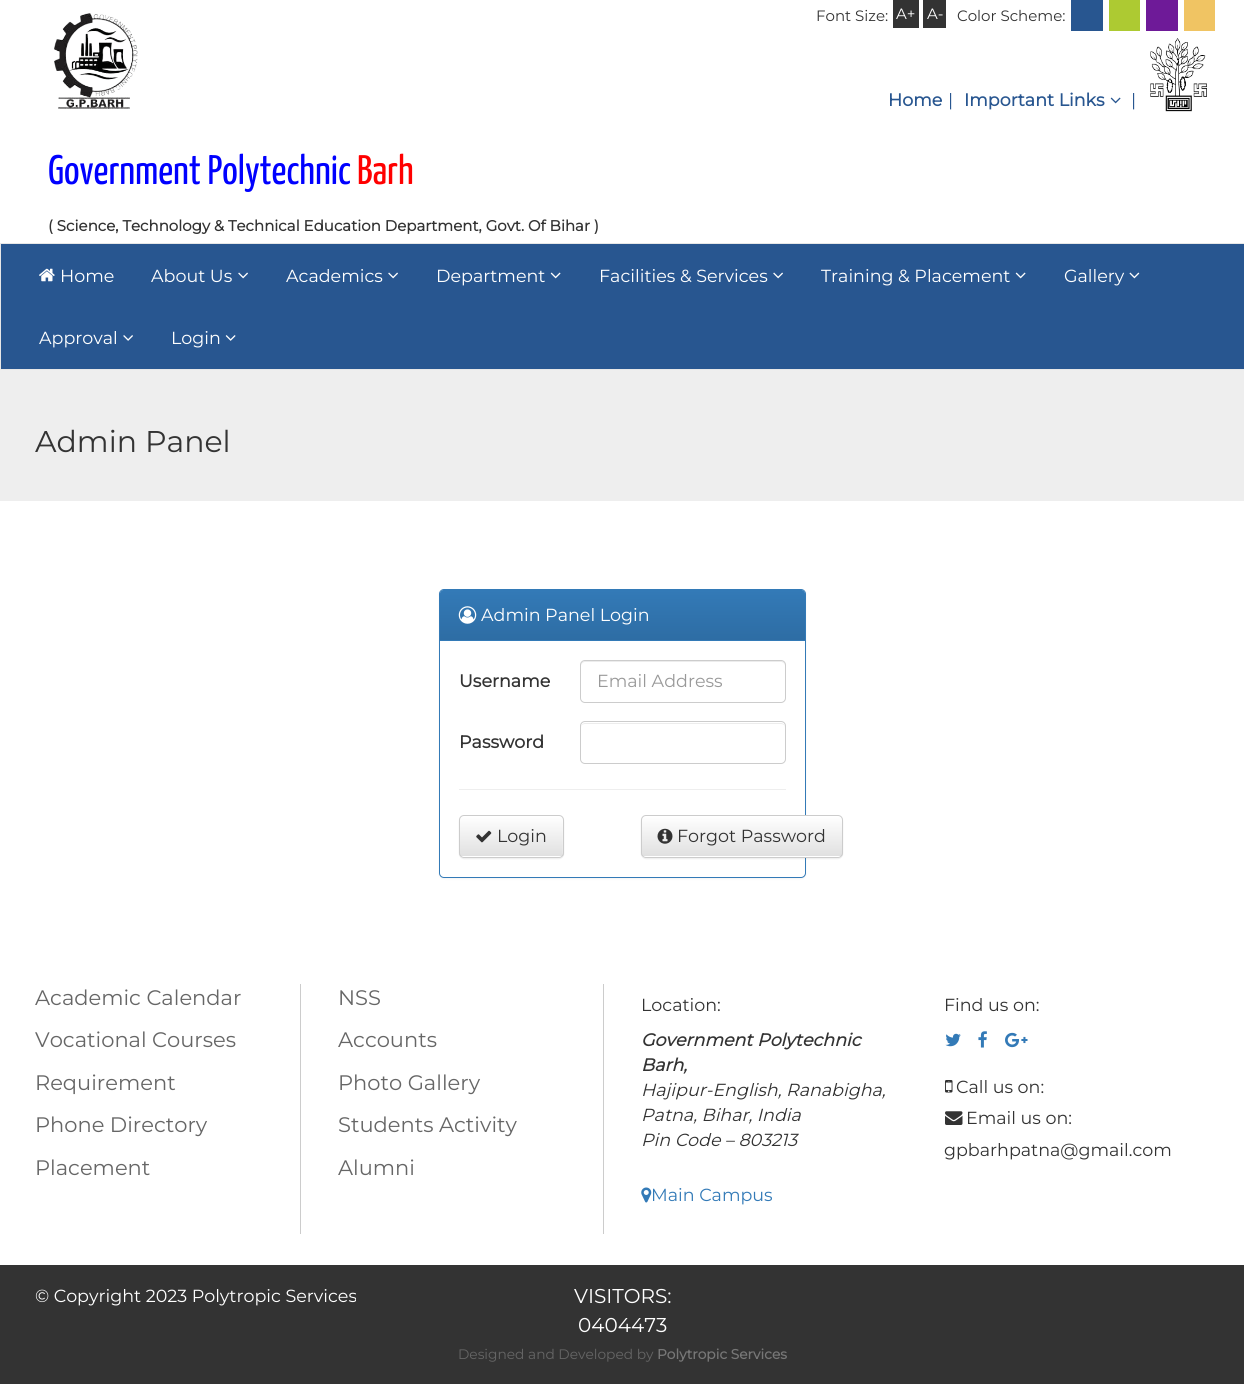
#include <cairo.h>
#include <math.h>
#include <stddef.h>

static cairo_t *ctx;

static void use_color(int r, int g, int b) {
    cairo_set_source_rgb(ctx, r / 255.0, g / 255.0, b / 255.0);
}

static void round_rect(double x, double y, double w, double h, double r) {
    cairo_new_sub_path(ctx);
    cairo_arc(ctx, x + w - r, y + h - r, r, 0, M_PI / 2);
    cairo_arc(ctx, x + r, y + h - r, r, M_PI / 2, M_PI);
    cairo_arc(ctx, x + r, y + r, r, M_PI, 1.5 * M_PI);
    cairo_arc(ctx, x + w - r, y + r, r, 1.5 * M_PI, 2 * M_PI);
    cairo_close_path(ctx);
}

static void shadow(double x, double y, double w, double h, double r, double blur, double alpha) {
    cairo_push_group_with_content(ctx, CAIRO_CONTENT_ALPHA);
    cairo_set_operator(ctx, CAIRO_OPERATOR_SOURCE);
    for (int i = 15; i >= -15 && fmin(w, h) + blur * i / 3 > 0; i -= 2) {
        double e = blur * i / 6;
        cairo_set_source_rgba(ctx, 0, 0, 0, alpha * erfc((i - 1) / 8.5) / 2);
        round_rect(x - e, y - e, w + 2 * e, h + 2 * e, fmax(0, fmin(r + e + blur * .6, fmin(w, h) / 2 + e)));
        cairo_fill(ctx);
    }
    cairo_pattern_t *soft = cairo_pop_group(ctx);
    cairo_mask(ctx, soft);
    cairo_pattern_destroy(soft);
}

static void picture(const char *path, double x, double y, double w, double h) {
    cairo_surface_t *image = cairo_image_surface_create_from_png(path);
    cairo_save(ctx);
    cairo_set_source_surface(ctx, image, x, y);
    cairo_rectangle(ctx, x, y, w, h);
    cairo_fill(ctx);
    cairo_restore(ctx);
    cairo_surface_destroy(image);
}

int main(void) {
    cairo_surface_t *surface = cairo_image_surface_create(CAIRO_FORMAT_RGB24, 1244, 1391);
    ctx = cairo_create(surface);
    cairo_font_options_t *options = cairo_font_options_create();
    cairo_font_options_set_hint_metrics(options, CAIRO_HINT_METRICS_OFF);
    cairo_font_options_set_hint_style(options, CAIRO_HINT_STYLE_NONE);
    cairo_set_font_options(ctx, options);
    cairo_set_miter_limit(ctx, 4);
    cairo_pattern_t *gradient;
    use_color(255, 255, 255);
    cairo_paint(ctx);
    cairo_select_font_face(ctx, "Montserrat Thin", CAIRO_FONT_SLANT_NORMAL, CAIRO_FONT_WEIGHT_NORMAL);
    cairo_set_font_size(ctx, 15);
    use_color(51, 51, 51);
    cairo_move_to(ctx, 816, 21);
    cairo_show_text(ctx, "Font Size:");
    cairo_rectangle(ctx, 893, 0, 26, 28);
    cairo_fill(ctx);
    use_color(255, 255, 255);
    cairo_move_to(ctx, 896, 19);
    cairo_show_text(ctx, "A+");
    use_color(51, 51, 51);
    cairo_rectangle(ctx, 923, 0, 23, 28);
    cairo_fill(ctx);
    use_color(255, 255, 255);
    cairo_move_to(ctx, 927, 19);
    cairo_show_text(ctx, "A-");
    use_color(51, 51, 51);
    cairo_move_to(ctx, 957, 21);
    cairo_show_text(ctx, "Color Scheme:");
    use_color(40, 86, 144);
    cairo_rectangle(ctx, 1071, 0, 32, 31);
    cairo_fill(ctx);
    use_color(173, 202, 50);
    cairo_rectangle(ctx, 1109, 0, 31, 31);
    cairo_fill(ctx);
    use_color(110, 26, 152);
    cairo_rectangle(ctx, 1146, 0, 32, 31);
    cairo_fill(ctx);
    use_color(240, 196, 99);
    cairo_rectangle(ctx, 1184, 0, 31, 31);
    cairo_fill(ctx);
    cairo_select_font_face(ctx, "Montserrat", CAIRO_FONT_SLANT_NORMAL, CAIRO_FONT_WEIGHT_BOLD);
    cairo_set_font_size(ctx, 17.5);
    use_color(40, 86, 144);
    cairo_move_to(ctx, 888, 106);
    cairo_show_text(ctx, "Home");
    cairo_select_font_face(ctx, "Montserrat Thin", CAIRO_FONT_SLANT_NORMAL, CAIRO_FONT_WEIGHT_NORMAL);
    cairo_move_to(ctx, 948, 106);
    cairo_show_text(ctx, "|");
    cairo_select_font_face(ctx, "Montserrat", CAIRO_FONT_SLANT_NORMAL, CAIRO_FONT_WEIGHT_BOLD);
    cairo_move_to(ctx, 964, 106);
    cairo_show_text(ctx, "Important Links");
    picture("img1.png", 1110, 97, 11, 7);
    cairo_select_font_face(ctx, "Montserrat Thin", CAIRO_FONT_SLANT_NORMAL, CAIRO_FONT_WEIGHT_NORMAL);
    cairo_move_to(ctx, 1131, 106);
    cairo_show_text(ctx, "|");
    picture("img2.png", 1150, 38, 57, 74);
    picture("img3.png", 54, 13, 84, 96);
    cairo_select_font_face(ctx, "Yanone Kaffeesatz ExtraLight", CAIRO_FONT_SLANT_NORMAL, CAIRO_FONT_WEIGHT_NORMAL);
    cairo_set_font_size(ctx, 41.25);
    use_color(0, 0, 255);
    cairo_move_to(ctx, 48, 184);
    cairo_show_text(ctx, "Government Polytechnic");
    use_color(255, 0, 0);
    cairo_move_to(ctx, 357, 184);
    cairo_show_text(ctx, "Barh");
    cairo_select_font_face(ctx, "Montserrat", CAIRO_FONT_SLANT_NORMAL, CAIRO_FONT_WEIGHT_BOLD);
    cairo_set_font_size(ctx, 15);
    use_color(51, 51, 51);
    cairo_move_to(ctx, 48, 231);
    cairo_show_text(ctx, "( Science, Technology & Technical Education Department, Govt. Of Bihar )");
    use_color(40, 86, 144);
    cairo_rectangle(ctx, 0.5, 243.5, 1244, 126);
    cairo_fill_preserve(ctx);
    use_color(231, 231, 231);
    cairo_set_line_width(ctx, 1);
    cairo_stroke(ctx);
    picture("img4.png", 39, 268, 16, 14);
    cairo_select_font_face(ctx, "Montserrat Thin", CAIRO_FONT_SLANT_NORMAL, CAIRO_FONT_WEIGHT_NORMAL);
    cairo_set_font_size(ctx, 17.5);
    use_color(255, 255, 255);
    cairo_move_to(ctx, 60, 282);
    cairo_show_text(ctx, "Home");
    cairo_move_to(ctx, 151, 282);
    cairo_show_text(ctx, "About Us");
    picture("img5.png", 238, 272, 10, 7);
    cairo_move_to(ctx, 286, 282);
    cairo_show_text(ctx, "Academics");
    picture("img5.png", 388, 272, 10, 7);
    cairo_move_to(ctx, 436, 282);
    cairo_show_text(ctx, "Department");
    picture("img6.png", 550, 272, 11, 7);
    cairo_move_to(ctx, 599, 282);
    cairo_show_text(ctx, "Facilities & Services");
    picture("img5.png", 773, 272, 10, 7);
    cairo_move_to(ctx, 821, 282);
    cairo_show_text(ctx, "Training & Placement");
    picture("img6.png", 1015, 272, 11, 7);
    cairo_move_to(ctx, 1064, 282);
    cairo_show_text(ctx, "Gallery");
    picture("img7.png", 1129, 272, 11, 7);
    cairo_move_to(ctx, 39, 344);
    cairo_show_text(ctx, "Approval");
    picture("img8.png", 123, 335, 10, 6);
    cairo_move_to(ctx, 171, 344);
    cairo_show_text(ctx, "Login");
    picture("img9.png", 225, 335, 11, 6);
    use_color(238, 238, 238);
    cairo_rectangle(ctx, 0, 370, 1244, 131);
    cairo_fill(ctx);
    cairo_set_font_size(ctx, 30);
    use_color(51, 51, 51);
    cairo_move_to(ctx, 35, 452);
    cairo_show_text(ctx, "Admin Panel");
    use_color(0, 0, 0);
    shadow(439, 590, 367, 289, 5, 1, 0.05);
    use_color(255, 255, 255);
    round_rect(439.5, 589.5, 366, 288, 4.5);
    cairo_fill_preserve(ctx);
    use_color(51, 122, 183);
    cairo_stroke(ctx);
    cairo_new_path(ctx);
    cairo_move_to(ctx, 444, 590);
    cairo_line_to(ctx, 801, 590);
    cairo_curve_to(ctx, 803, 590, 805, 592, 805, 594);
    cairo_line_to(ctx, 805, 641);
    cairo_line_to(ctx, 440, 641);
    cairo_line_to(ctx, 440, 594);
    cairo_curve_to(ctx, 440, 592, 442, 590, 444, 590);
    cairo_close_path(ctx);
    cairo_fill(ctx);
    gradient = cairo_pattern_create_linear(623, 590, 623, 640);
    cairo_pattern_add_color_stop_rgba(gradient, 0, 0.2, 0.478, 0.718, 1);
    cairo_pattern_add_color_stop_rgba(gradient, 1, 0.18, 0.427, 0.643, 1);
    cairo_set_source(ctx, gradient);
    cairo_pattern_destroy(gradient);
    cairo_new_path(ctx);
    cairo_move_to(ctx, 444, 590);
    cairo_line_to(ctx, 801, 590);
    cairo_curve_to(ctx, 803, 590, 805, 592, 805, 594);
    cairo_line_to(ctx, 805, 640);
    cairo_line_to(ctx, 440, 640);
    cairo_line_to(ctx, 440, 594);
    cairo_curve_to(ctx, 440, 592, 442, 590, 444, 590);
    cairo_close_path(ctx);
    cairo_fill(ctx);
    picture("img10.png", 458, 606, 19, 18);
    cairo_set_font_size(ctx, 17.5);
    use_color(255, 255, 255);
    cairo_move_to(ctx, 481, 621);
    cairo_show_text(ctx, "Admin Panel Login");
    cairo_select_font_face(ctx, "Montserrat", CAIRO_FONT_SLANT_NORMAL, CAIRO_FONT_WEIGHT_BOLD);
    use_color(51, 51, 51);
    cairo_move_to(ctx, 459, 687);
    cairo_show_text(ctx, "Username");
    use_color(236, 236, 236);
    cairo_new_path(ctx);
    cairo_move_to(ctx, 585, 662);
    cairo_line_to(ctx, 781, 662);
    cairo_curve_to(ctx, 783, 662, 785, 664, 785, 666);
    cairo_line_to(ctx, 785, 665);
    cairo_curve_to(ctx, 785, 663, 783, 661, 781, 661);
    cairo_line_to(ctx, 585, 661);
    cairo_curve_to(ctx, 583, 661, 581, 663, 581, 665);
    cairo_line_to(ctx, 581, 666);
    cairo_curve_to(ctx, 581, 664, 583, 662, 585, 662);
    cairo_close_path(ctx);
    cairo_fill(ctx);
    round_rect(580.5, 660.5, 205, 42, 4.5);
    use_color(204, 204, 204);
    cairo_stroke(ctx);
    cairo_select_font_face(ctx, "Montserrat Thin", CAIRO_FONT_SLANT_NORMAL, CAIRO_FONT_WEIGHT_NORMAL);
    use_color(153, 153, 153);
    cairo_move_to(ctx, 597, 687);
    cairo_show_text(ctx, "Email Address");
    cairo_select_font_face(ctx, "Montserrat", CAIRO_FONT_SLANT_NORMAL, CAIRO_FONT_WEIGHT_BOLD);
    use_color(51, 51, 51);
    cairo_move_to(ctx, 459, 748);
    cairo_show_text(ctx, "Password");
    use_color(236, 236, 236);
    cairo_new_path(ctx);
    cairo_move_to(ctx, 585, 724);
    cairo_line_to(ctx, 781, 724);
    cairo_curve_to(ctx, 783, 724, 785, 725, 785, 728);
    cairo_line_to(ctx, 785, 727);
    cairo_curve_to(ctx, 785, 725, 783, 723, 781, 723);
    cairo_line_to(ctx, 585, 723);
    cairo_curve_to(ctx, 583, 723, 581, 725, 581, 727);
    cairo_line_to(ctx, 581, 728);
    cairo_curve_to(ctx, 581, 725, 583, 724, 585, 724);
    cairo_close_path(ctx);
    cairo_fill(ctx);
    round_rect(580.5, 721.5, 205, 42, 4.5);
    use_color(204, 204, 204);
    cairo_stroke(ctx);
    use_color(238, 238, 238);
    cairo_rectangle(ctx, 459, 789, 327, 1);
    cairo_fill(ctx);
    use_color(0, 0, 0);
    shadow(459, 816, 105, 43, 5, 0.5, 0.07);
    use_color(255, 255, 255);
    round_rect(459, 815, 105, 43, 5);
    cairo_fill(ctx);
    cairo_save(ctx);
    round_rect(459, 815, 105, 43, 5);
    cairo_clip(ctx);
    gradient = cairo_pattern_create_linear(511, 816, 511, 856);
    cairo_pattern_add_color_stop_rgba(gradient, 0, 1, 1, 1, 1);
    cairo_pattern_add_color_stop_rgba(gradient, 1, 0.878, 0.878, 0.878, 1);
    cairo_set_source(ctx, gradient);
    cairo_pattern_destroy(gradient);
    cairo_rectangle(ctx, 459, 816, 105, 40);
    cairo_fill(ctx);
    cairo_restore(ctx);
    cairo_set_source_rgba(ctx, 1, 1, 1, 0.15);
    cairo_new_path(ctx);
    cairo_move_to(ctx, 464, 818);
    cairo_line_to(ctx, 559, 818);
    cairo_curve_to(ctx, 563, 818, 562, 824, 562, 826);
    cairo_line_to(ctx, 562, 855);
    cairo_curve_to(ctx, 563, 854, 563, 853, 563, 852);
    cairo_line_to(ctx, 563, 820);
    cairo_curve_to(ctx, 563, 818, 561, 816, 559, 816);
    cairo_line_to(ctx, 464, 816);
    cairo_curve_to(ctx, 462, 816, 460, 818, 460, 820);
    cairo_line_to(ctx, 460, 821);
    cairo_curve_to(ctx, 460, 819, 462, 818, 464, 818);
    cairo_close_path(ctx);
    cairo_fill(ctx);
    round_rect(459.5, 815.5, 104, 42, 4.5);
    use_color(204, 204, 204);
    cairo_stroke(ctx);
    picture("img11.png", 476, 830, 16, 13);
    cairo_select_font_face(ctx, "Montserrat Thin", CAIRO_FONT_SLANT_NORMAL, CAIRO_FONT_WEIGHT_NORMAL);
    use_color(51, 51, 51);
    cairo_move_to(ctx, 497, 842);
    cairo_show_text(ctx, "Login");
    use_color(0, 0, 0);
    shadow(641, 816, 202, 43, 5, 0.5, 0.07);
    use_color(255, 255, 255);
    round_rect(641, 815, 202, 43, 5);
    cairo_fill(ctx);
    cairo_save(ctx);
    round_rect(641, 815, 202, 43, 5);
    cairo_clip(ctx);
    gradient = cairo_pattern_create_linear(742, 816, 742, 856);
    cairo_pattern_add_color_stop_rgba(gradient, 0, 1, 1, 1, 1);
    cairo_pattern_add_color_stop_rgba(gradient, 1, 0.878, 0.878, 0.878, 1);
    cairo_set_source(ctx, gradient);
    cairo_pattern_destroy(gradient);
    cairo_rectangle(ctx, 641, 816, 202, 40);
    cairo_fill(ctx);
    cairo_restore(ctx);
    round_rect(641.5, 815.5, 201, 42, 4.5);
    use_color(204, 204, 204);
    cairo_stroke(ctx);
    picture("img12.png", 657, 828, 16, 16);
    use_color(51, 51, 51);
    cairo_move_to(ctx, 677, 842);
    cairo_show_text(ctx, "Forgot Password");
    use_color(204, 204, 204);
    cairo_rectangle(ctx, 300, 984, 1, 250);
    cairo_fill(ctx);
    cairo_set_font_size(ctx, 21);
    use_color(102, 102, 102);
    cairo_move_to(ctx, 35, 1005);
    cairo_show_text(ctx, "Academic Calendar");
    cairo_move_to(ctx, 35, 1047);
    cairo_show_text(ctx, "Vocational Courses");
    cairo_move_to(ctx, 35, 1090);
    cairo_show_text(ctx, "Requirement");
    cairo_move_to(ctx, 35, 1132);
    cairo_show_text(ctx, "Phone Directory");
    cairo_move_to(ctx, 35, 1175);
    cairo_show_text(ctx, "Placement");
    use_color(204, 204, 204);
    cairo_rectangle(ctx, 603, 984, 1, 250);
    cairo_fill(ctx);
    use_color(102, 102, 102);
    cairo_move_to(ctx, 338, 1005);
    cairo_show_text(ctx, "NSS");
    cairo_move_to(ctx, 338, 1047);
    cairo_show_text(ctx, "Accounts");
    cairo_move_to(ctx, 338, 1090);
    cairo_show_text(ctx, "Photo Gallery");
    cairo_move_to(ctx, 338, 1132);
    cairo_show_text(ctx, "Students Activity");
    cairo_move_to(ctx, 338, 1175);
    cairo_show_text(ctx, "Alumni");
    cairo_set_font_size(ctx, 17.5);
    use_color(51, 51, 51);
    cairo_move_to(ctx, 641, 1011);
    cairo_show_text(ctx, "Location:");
    cairo_select_font_face(ctx, "Montserrat", CAIRO_FONT_SLANT_ITALIC, CAIRO_FONT_WEIGHT_BOLD);
    cairo_move_to(ctx, 641, 1046);
    cairo_show_text(ctx, "Government Polytechnic");
    cairo_move_to(ctx, 641, 1071);
    cairo_show_text(ctx, "Barh,");
    cairo_select_font_face(ctx, "Montserrat Thin", CAIRO_FONT_SLANT_ITALIC, CAIRO_FONT_WEIGHT_NORMAL);
    cairo_move_to(ctx, 641, 1096);
    cairo_show_text(ctx, "Hajipur-English, Ranabigha,");
    cairo_move_to(ctx, 641, 1121);
    cairo_show_text(ctx, "Patna, Bihar, India");
    cairo_move_to(ctx, 641, 1146);
    cairo_show_text(ctx, "Pin Code – 803213");
    picture("img13.png", 641, 1187, 11, 16);
    cairo_select_font_face(ctx, "Montserrat Thin", CAIRO_FONT_SLANT_NORMAL, CAIRO_FONT_WEIGHT_NORMAL);
    use_color(51, 122, 183);
    cairo_move_to(ctx, 651, 1201);
    cairo_show_text(ctx, "Main Campus");
    use_color(51, 51, 51);
    cairo_move_to(ctx, 944, 1011);
    cairo_show_text(ctx, "Find us on:");
    picture("img14.png", 945, 1033, 16, 14);
    picture("img15.png", 978, 1031, 9, 17);
    picture("img16.png", 1005, 1032, 23, 16);
    picture("img17.png", 945, 1080, 8, 13);
    cairo_move_to(ctx, 956, 1093);
    cairo_show_text(ctx, "Call us on:");
    picture("img18.png", 945, 1111, 18, 14);
    cairo_move_to(ctx, 966, 1124);
    cairo_show_text(ctx, "Email us on:");
    cairo_move_to(ctx, 944, 1156);
    cairo_show_text(ctx, "gpbarhpatna@gmail.com");
    cairo_rectangle(ctx, 0, 1265, 1244, 119);
    cairo_fill(ctx);
    use_color(255, 255, 255);
    cairo_move_to(ctx, 35, 1302);
    cairo_show_text(ctx, "© Copyright 2023 Polytropic Services");
    cairo_set_font_size(ctx, 20);
    cairo_move_to(ctx, 574, 1303);
    cairo_show_text(ctx, "VISITORS:");
    cairo_move_to(ctx, 578, 1332);
    cairo_show_text(ctx, "0404473");
    cairo_set_font_size(ctx, 13.75);
    use_color(102, 102, 102);
    cairo_move_to(ctx, 458, 1359);
    cairo_show_text(ctx, "Designed and Developed by");
    cairo_select_font_face(ctx, "Montserrat", CAIRO_FONT_SLANT_NORMAL, CAIRO_FONT_WEIGHT_BOLD);
    use_color(119, 119, 119);
    cairo_move_to(ctx, 657, 1359);
    cairo_show_text(ctx, "Polytropic Services");
    cairo_surface_write_to_png(surface, "result.png");
    cairo_font_options_destroy(options);
    cairo_destroy(ctx);
    cairo_surface_destroy(surface);
    return 0;
}
